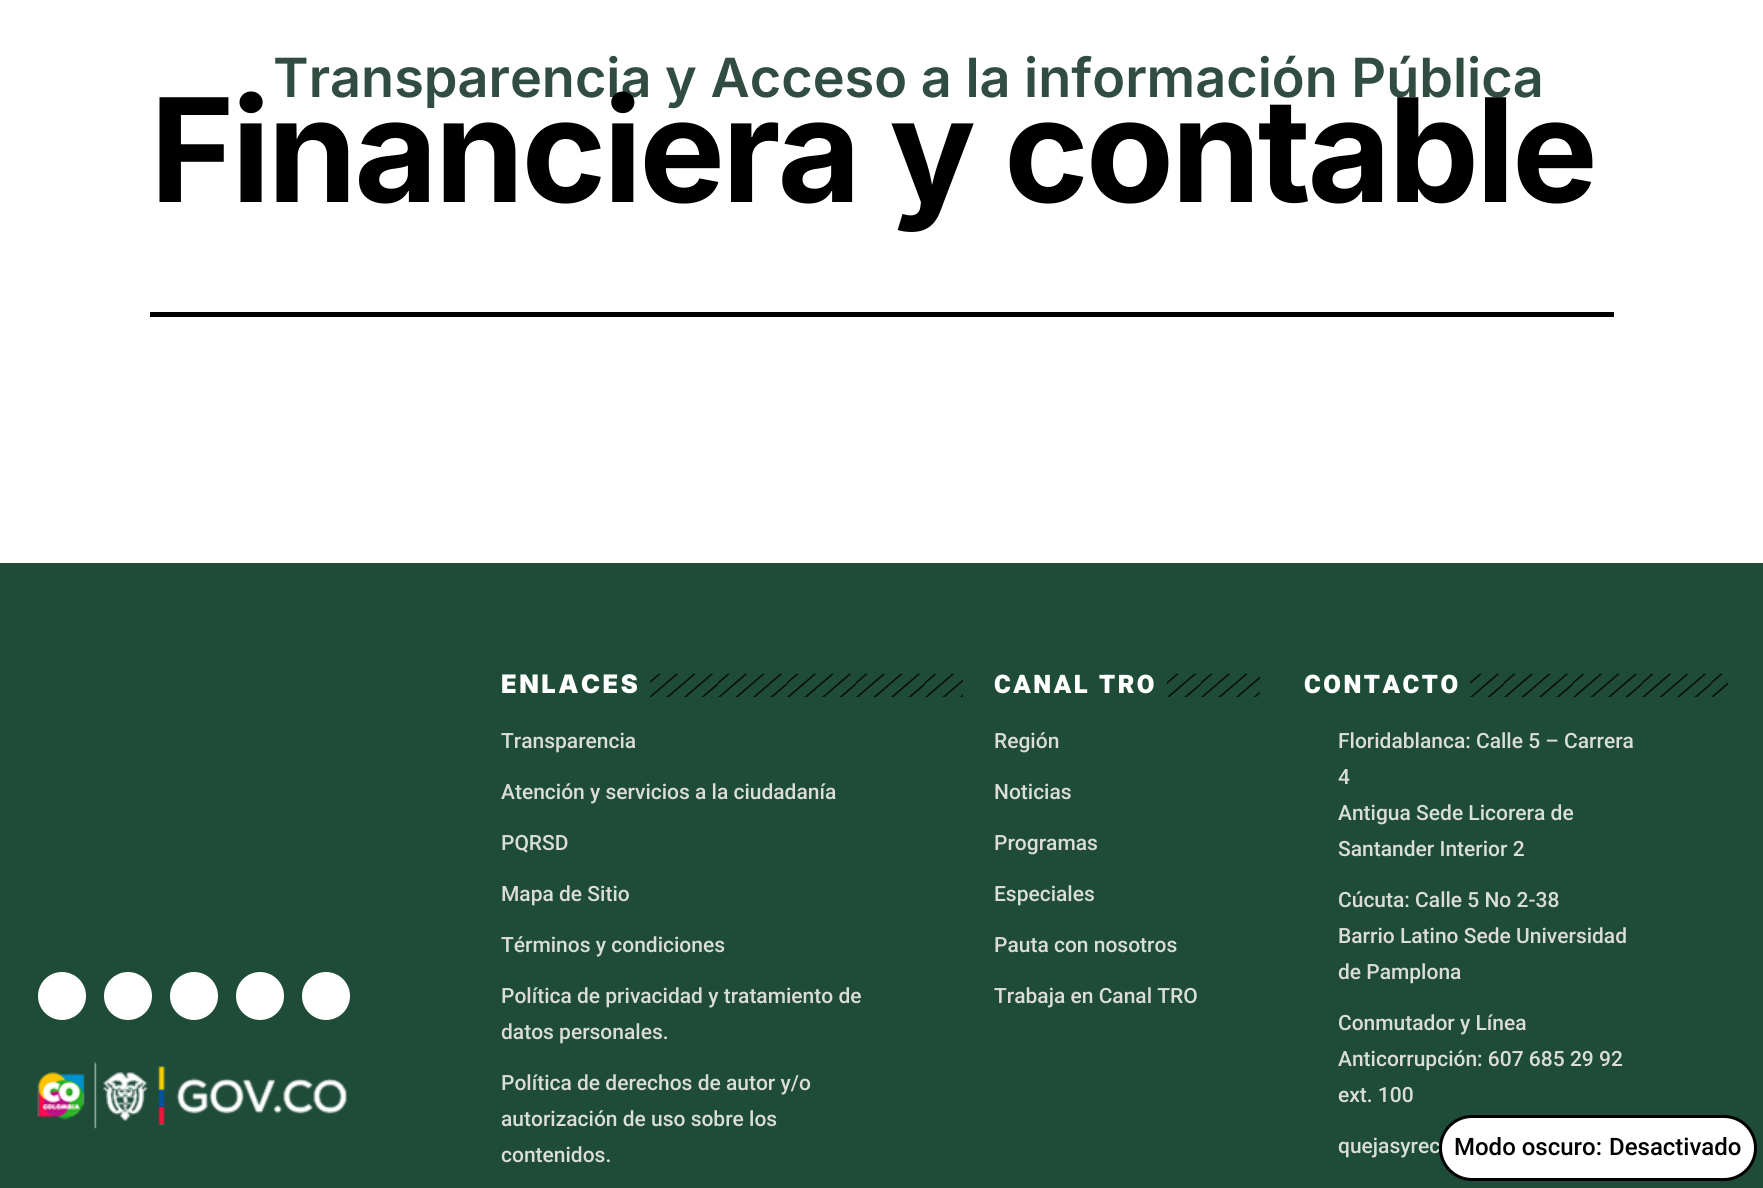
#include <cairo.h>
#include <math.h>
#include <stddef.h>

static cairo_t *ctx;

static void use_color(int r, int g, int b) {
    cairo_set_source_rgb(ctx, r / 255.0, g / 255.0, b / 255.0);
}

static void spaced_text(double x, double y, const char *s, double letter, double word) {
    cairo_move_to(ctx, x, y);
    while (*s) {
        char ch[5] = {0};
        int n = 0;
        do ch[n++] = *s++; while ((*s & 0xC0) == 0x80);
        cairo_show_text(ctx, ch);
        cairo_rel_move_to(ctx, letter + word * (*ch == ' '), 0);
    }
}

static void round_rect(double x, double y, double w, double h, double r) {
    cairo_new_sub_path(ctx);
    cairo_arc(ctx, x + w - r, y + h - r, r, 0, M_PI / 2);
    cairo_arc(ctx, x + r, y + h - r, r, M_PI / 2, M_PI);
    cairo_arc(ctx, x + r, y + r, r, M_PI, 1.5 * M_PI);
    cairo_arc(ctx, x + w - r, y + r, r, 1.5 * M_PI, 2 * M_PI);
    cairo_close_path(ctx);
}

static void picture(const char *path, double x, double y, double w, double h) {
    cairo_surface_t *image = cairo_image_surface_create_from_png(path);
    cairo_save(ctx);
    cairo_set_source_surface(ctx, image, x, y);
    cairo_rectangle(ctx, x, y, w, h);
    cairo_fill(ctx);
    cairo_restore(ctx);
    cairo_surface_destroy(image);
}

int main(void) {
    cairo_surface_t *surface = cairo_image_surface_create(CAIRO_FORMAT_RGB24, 1763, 1188);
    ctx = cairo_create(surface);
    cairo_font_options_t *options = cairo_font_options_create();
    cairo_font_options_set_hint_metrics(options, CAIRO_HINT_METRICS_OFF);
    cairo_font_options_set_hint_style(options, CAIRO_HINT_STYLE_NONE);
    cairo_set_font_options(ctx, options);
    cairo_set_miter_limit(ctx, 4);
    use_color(255, 255, 255);
    cairo_paint(ctx);
    cairo_select_font_face(ctx, "Inter SemiBold", CAIRO_FONT_SLANT_NORMAL, CAIRO_FONT_WEIGHT_NORMAL);
    cairo_set_font_size(ctx, 54);
    use_color(49, 77, 65);
    cairo_move_to(ctx, 273, 97);
    cairo_show_text(ctx, "Transparencia y Acceso a la información Pública");
    use_color(0, 0, 0);
    cairo_rectangle(ctx, 150, 312, 1464, 5);
    cairo_fill(ctx);
    cairo_select_font_face(ctx, "Inter", CAIRO_FONT_SLANT_NORMAL, CAIRO_FONT_WEIGHT_BOLD);
    cairo_set_font_size(ctx, 144);
    spaced_text(150, 202, "Financiera y contable", -3, 0);
    use_color(31, 75, 57);
    cairo_rectangle(ctx, 0, 563, 1763, 625);
    cairo_fill(ctx);
    use_color(255, 255, 255);
    cairo_arc(ctx, 62, 996, 24, 0, 2 * M_PI);
    cairo_fill(ctx);
    cairo_arc(ctx, 128, 996, 24, 0, 2 * M_PI);
    cairo_fill(ctx);
    cairo_arc(ctx, 194, 996, 24, 0, 2 * M_PI);
    cairo_fill(ctx);
    cairo_arc(ctx, 260, 996, 24, 0, 2 * M_PI);
    cairo_fill(ctx);
    cairo_arc(ctx, 326, 996, 24, 0, 2 * M_PI);
    cairo_fill(ctx);
    picture("img1.png", 37, 1061, 310, 68);
    cairo_select_font_face(ctx, "Inter Black", CAIRO_FONT_SLANT_NORMAL, CAIRO_FONT_WEIGHT_NORMAL);
    cairo_set_font_size(ctx, 25.5);
    spaced_text(501, 693, "ENLACES", 2.5, 0);
    picture("img2.png", 649, 673, 314, 25);
    cairo_select_font_face(ctx, "Roboto Medium", CAIRO_FONT_SLANT_NORMAL, CAIRO_FONT_WEIGHT_NORMAL);
    cairo_set_font_size(ctx, 21);
    use_color(219, 221, 219);
    cairo_move_to(ctx, 501, 748);
    cairo_show_text(ctx, "Transparencia");
    cairo_move_to(ctx, 501, 799);
    cairo_show_text(ctx, "Atención y servicios a la ciudadanía");
    cairo_move_to(ctx, 501, 850);
    cairo_show_text(ctx, "PQRSD");
    cairo_move_to(ctx, 501, 901);
    cairo_show_text(ctx, "Mapa de Sitio");
    cairo_move_to(ctx, 501, 952);
    cairo_show_text(ctx, "Términos y condiciones");
    cairo_move_to(ctx, 501, 1003);
    cairo_show_text(ctx, "Política de privacidad y tratamiento de");
    cairo_move_to(ctx, 501, 1039);
    cairo_show_text(ctx, "datos personales.");
    cairo_move_to(ctx, 501, 1090);
    cairo_show_text(ctx, "Política de derechos de autor y/o");
    cairo_move_to(ctx, 501, 1126);
    cairo_show_text(ctx, "autorización de uso sobre los");
    cairo_move_to(ctx, 501, 1162);
    cairo_show_text(ctx, "contenidos.");
    cairo_select_font_face(ctx, "Heebo Black", CAIRO_FONT_SLANT_NORMAL, CAIRO_FONT_WEIGHT_NORMAL);
    cairo_set_font_size(ctx, 25.5);
    use_color(255, 255, 255);
    spaced_text(994, 693, "CANAL TRO", 2.5, 0);
    picture("img3.png", 1167, 673, 93, 25);
    cairo_select_font_face(ctx, "Roboto Medium", CAIRO_FONT_SLANT_NORMAL, CAIRO_FONT_WEIGHT_NORMAL);
    cairo_set_font_size(ctx, 21);
    use_color(219, 221, 219);
    cairo_move_to(ctx, 994, 748);
    cairo_show_text(ctx, "Región");
    cairo_move_to(ctx, 994, 799);
    cairo_show_text(ctx, "Noticias");
    cairo_move_to(ctx, 994, 850);
    cairo_show_text(ctx, "Programas");
    cairo_move_to(ctx, 994, 901);
    cairo_show_text(ctx, "Especiales");
    cairo_move_to(ctx, 994, 952);
    cairo_show_text(ctx, "Pauta con nosotros");
    cairo_move_to(ctx, 994, 1003);
    cairo_show_text(ctx, "Trabaja en Canal TRO");
    cairo_select_font_face(ctx, "Heebo Black", CAIRO_FONT_SLANT_NORMAL, CAIRO_FONT_WEIGHT_NORMAL);
    cairo_set_font_size(ctx, 25.5);
    use_color(255, 255, 255);
    spaced_text(1304, 693, "CONTACTO", 2.5, 0);
    picture("img4.png", 1470, 673, 258, 25);
    cairo_select_font_face(ctx, "Roboto Medium", CAIRO_FONT_SLANT_NORMAL, CAIRO_FONT_WEIGHT_NORMAL);
    cairo_set_font_size(ctx, 21);
    use_color(219, 221, 219);
    cairo_move_to(ctx, 1338, 748);
    cairo_show_text(ctx, "Floridablanca: Calle 5 – Carrera");
    cairo_move_to(ctx, 1338, 784);
    cairo_show_text(ctx, "4");
    cairo_move_to(ctx, 1338, 820);
    cairo_show_text(ctx, "Antigua Sede Licorera de");
    cairo_move_to(ctx, 1338, 856);
    cairo_show_text(ctx, "Santander Interior 2");
    cairo_move_to(ctx, 1338, 907);
    cairo_show_text(ctx, "Cúcuta: Calle 5 No 2-38");
    cairo_move_to(ctx, 1338, 943);
    cairo_show_text(ctx, "Barrio Latino Sede Universidad");
    cairo_move_to(ctx, 1338, 979);
    cairo_show_text(ctx, "de Pamplona");
    cairo_move_to(ctx, 1338, 1030);
    cairo_show_text(ctx, "Conmutador y Línea");
    cairo_move_to(ctx, 1338, 1066);
    cairo_show_text(ctx, "Anticorrupción: 607 685 29 92");
    cairo_move_to(ctx, 1338, 1102);
    cairo_show_text(ctx, "ext. 100");
    cairo_move_to(ctx, 1338, 1153);
    cairo_show_text(ctx, "quejasyrec");
    use_color(255, 255, 255);
    round_rect(1440.5, 1116.5, 315, 63, 31.5);
    cairo_fill_preserve(ctx);
    use_color(0, 0, 0);
    cairo_set_line_width(ctx, 3);
    cairo_stroke(ctx);
    cairo_set_font_size(ctx, 24);
    cairo_move_to(ctx, 1454, 1155);
    cairo_show_text(ctx, "Modo oscuro:");
    cairo_move_to(ctx, 1609, 1155);
    cairo_show_text(ctx, "Desactivado");
    cairo_surface_write_to_png(surface, "result.png");
    cairo_font_options_destroy(options);
    cairo_destroy(ctx);
    cairo_surface_destroy(surface);
    return 0;
}
